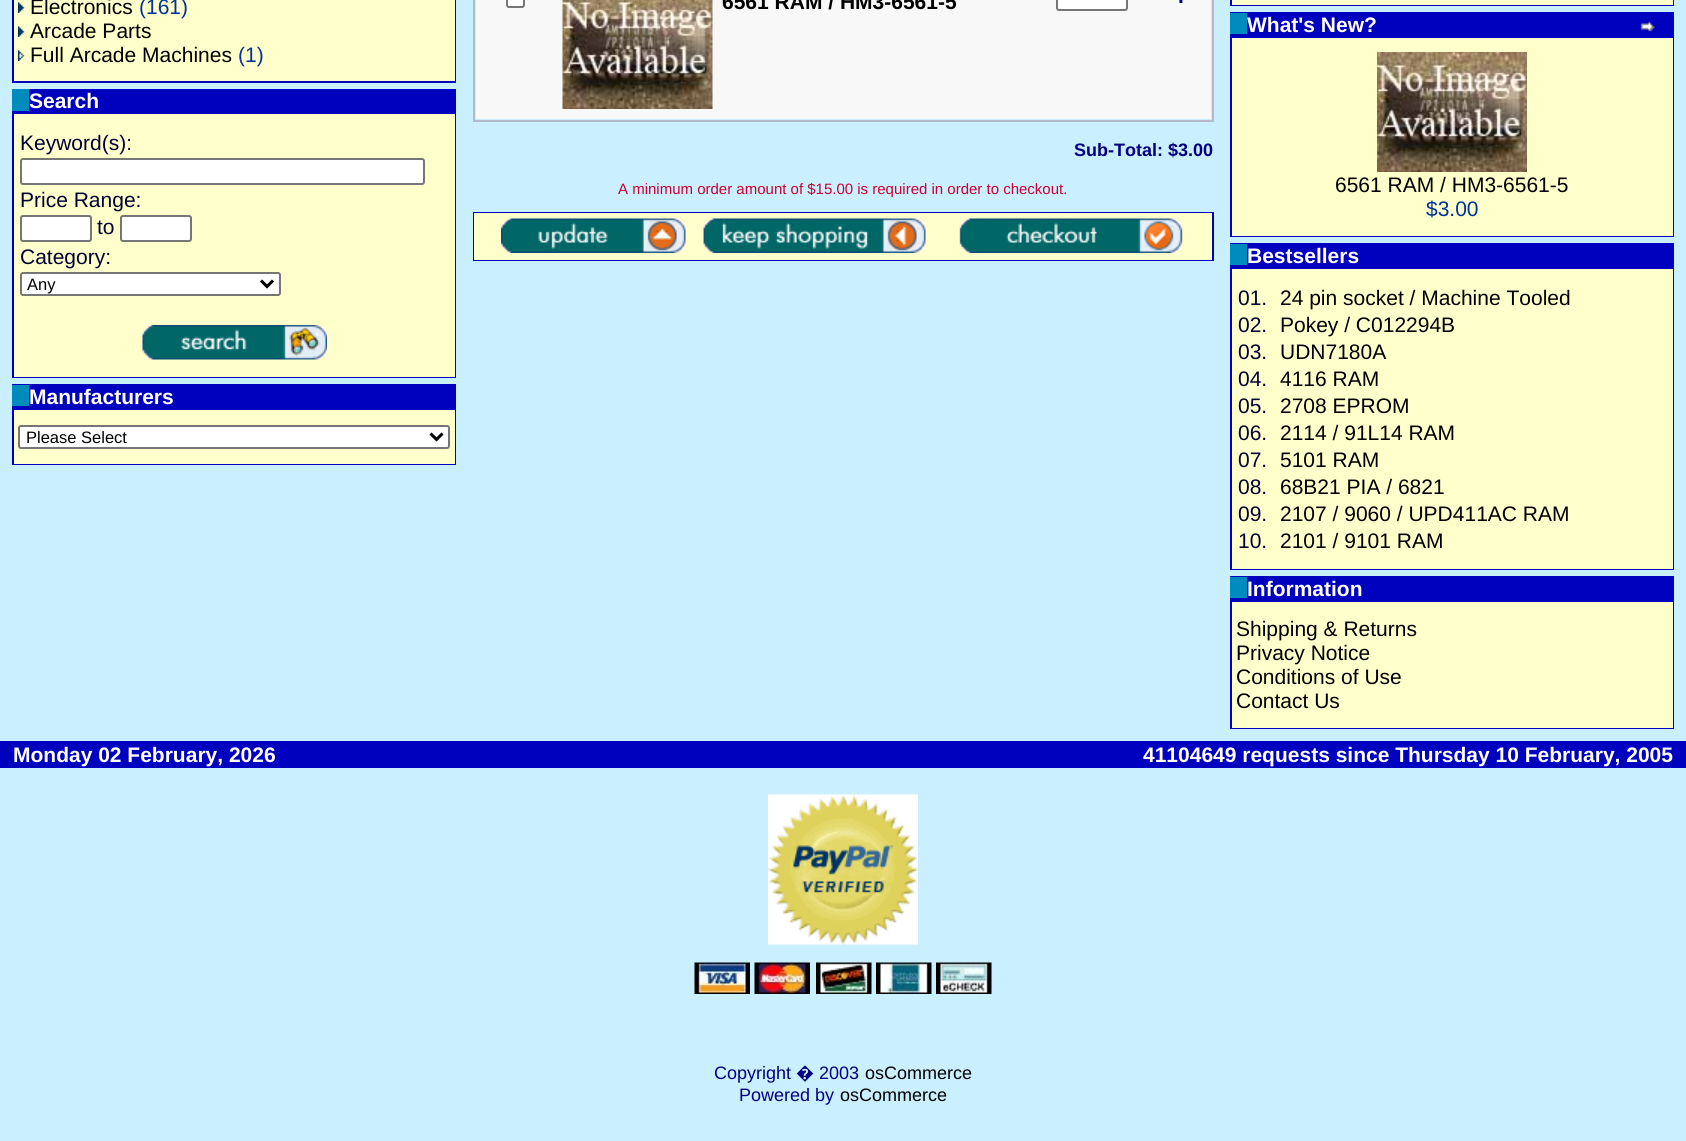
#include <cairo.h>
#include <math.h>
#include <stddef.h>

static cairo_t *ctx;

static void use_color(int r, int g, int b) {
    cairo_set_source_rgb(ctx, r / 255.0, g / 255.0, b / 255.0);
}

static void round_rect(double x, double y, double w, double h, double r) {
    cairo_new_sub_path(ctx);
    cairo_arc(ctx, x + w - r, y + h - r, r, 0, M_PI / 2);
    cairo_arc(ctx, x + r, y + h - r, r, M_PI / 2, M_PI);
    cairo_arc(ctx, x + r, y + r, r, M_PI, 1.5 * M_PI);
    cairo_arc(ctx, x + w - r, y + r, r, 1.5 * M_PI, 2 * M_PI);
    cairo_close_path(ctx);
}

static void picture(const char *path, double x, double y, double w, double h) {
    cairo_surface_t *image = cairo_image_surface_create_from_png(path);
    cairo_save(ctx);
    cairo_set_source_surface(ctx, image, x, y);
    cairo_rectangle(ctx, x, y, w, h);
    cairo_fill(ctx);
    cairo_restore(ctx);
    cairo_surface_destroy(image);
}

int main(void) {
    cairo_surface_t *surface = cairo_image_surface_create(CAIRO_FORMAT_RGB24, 1686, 1141);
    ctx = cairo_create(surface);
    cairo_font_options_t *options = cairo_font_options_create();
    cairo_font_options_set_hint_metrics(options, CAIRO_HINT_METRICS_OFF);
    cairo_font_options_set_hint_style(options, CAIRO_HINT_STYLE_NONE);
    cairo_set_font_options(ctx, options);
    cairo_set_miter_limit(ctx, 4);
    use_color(202, 239, 255);
    cairo_paint(ctx);
    use_color(0, 0, 191);
    cairo_rectangle(ctx, 12, 0, 444, 83);
    cairo_fill(ctx);
    use_color(255, 255, 204);
    cairo_rectangle(ctx, 14, 0, 441, 81);
    cairo_fill(ctx);
    picture("img1.png", 18, 2, 7, 11);
    cairo_select_font_face(ctx, "Liberation Sans", CAIRO_FONT_SLANT_NORMAL, CAIRO_FONT_WEIGHT_NORMAL);
    cairo_set_font_size(ctx, 21);
    use_color(0, 0, 0);
    cairo_move_to(ctx, 30, 14);
    cairo_show_text(ctx, "Electronics");
    use_color(0, 51, 153);
    cairo_move_to(ctx, 139, 14);
    cairo_show_text(ctx, "(161)");
    picture("img1.png", 18, 26, 7, 11);
    use_color(0, 0, 0);
    cairo_move_to(ctx, 30, 38);
    cairo_show_text(ctx, "Arcade Parts");
    picture("img2.png", 18, 50, 7, 11);
    cairo_move_to(ctx, 30, 62);
    cairo_show_text(ctx, "Full Arcade Machines");
    use_color(0, 51, 153);
    cairo_move_to(ctx, 238, 62);
    cairo_show_text(ctx, "(1)");
    use_color(0, 0, 191);
    cairo_rectangle(ctx, 12, 111, 17, 2);
    cairo_fill(ctx);
    use_color(0, 139, 191);
    cairo_rectangle(ctx, 12, 89, 17, 22);
    cairo_fill(ctx);
    use_color(0, 0, 191);
    cairo_rectangle(ctx, 29, 89, 427, 24);
    cairo_fill(ctx);
    cairo_select_font_face(ctx, "Liberation Sans", CAIRO_FONT_SLANT_NORMAL, CAIRO_FONT_WEIGHT_BOLD);
    use_color(255, 255, 255);
    cairo_move_to(ctx, 29, 108);
    cairo_show_text(ctx, "Search");
    use_color(0, 0, 191);
    cairo_rectangle(ctx, 12, 113, 444, 265);
    cairo_fill(ctx);
    use_color(255, 255, 204);
    cairo_rectangle(ctx, 14, 114, 441, 263);
    cairo_fill(ctx);
    cairo_select_font_face(ctx, "Liberation Sans", CAIRO_FONT_SLANT_NORMAL, CAIRO_FONT_WEIGHT_NORMAL);
    use_color(0, 0, 51);
    cairo_move_to(ctx, 20, 150);
    cairo_show_text(ctx, "Keyword(s):");
    use_color(255, 255, 255);
    round_rect(21, 159, 403, 25, 2);
    cairo_fill_preserve(ctx);
    use_color(118, 118, 118);
    cairo_stroke(ctx);
    use_color(0, 0, 51);
    cairo_move_to(ctx, 20, 207);
    cairo_show_text(ctx, "Price Range:");
    use_color(255, 255, 255);
    round_rect(21, 216, 70, 25, 2);
    cairo_fill_preserve(ctx);
    use_color(118, 118, 118);
    cairo_stroke(ctx);
    use_color(0, 0, 51);
    cairo_move_to(ctx, 97, 234);
    cairo_show_text(ctx, "to");
    use_color(255, 255, 255);
    round_rect(121, 216, 70, 25, 2);
    cairo_fill_preserve(ctx);
    use_color(118, 118, 118);
    cairo_stroke(ctx);
    use_color(0, 0, 51);
    cairo_move_to(ctx, 20, 264);
    cairo_show_text(ctx, "Category:");
    use_color(255, 255, 255);
    round_rect(21, 273, 259, 22, 2);
    cairo_fill_preserve(ctx);
    use_color(118, 118, 118);
    cairo_stroke(ctx);
    cairo_new_path(ctx);
    cairo_move_to(ctx, 261, 280.5);
    cairo_line_to(ctx, 267, 286.5);
    cairo_line_to(ctx, 273, 280.5);
    use_color(0, 0, 0);
    cairo_set_line_width(ctx, 3);
    cairo_stroke(ctx);
    cairo_set_font_size(ctx, 16.5);
    cairo_move_to(ctx, 27, 290);
    cairo_show_text(ctx, "Any");
    picture("img3.png", 142, 325, 185, 35);
    use_color(0, 0, 191);
    cairo_rectangle(ctx, 12, 384, 444, 81);
    cairo_fill(ctx);
    use_color(0, 139, 191);
    cairo_rectangle(ctx, 12, 385, 17, 21);
    cairo_fill(ctx);
    cairo_select_font_face(ctx, "Liberation Sans", CAIRO_FONT_SLANT_NORMAL, CAIRO_FONT_WEIGHT_BOLD);
    cairo_set_font_size(ctx, 21);
    use_color(255, 255, 255);
    cairo_move_to(ctx, 29, 404);
    cairo_show_text(ctx, "Manufacturers");
    use_color(255, 255, 204);
    cairo_rectangle(ctx, 14, 410, 441, 54);
    cairo_fill(ctx);
    use_color(255, 255, 255);
    round_rect(19, 426, 430, 22, 2);
    cairo_fill_preserve(ctx);
    use_color(118, 118, 118);
    cairo_set_line_width(ctx, 2);
    cairo_stroke(ctx);
    cairo_new_path(ctx);
    cairo_move_to(ctx, 430.5, 433.5);
    cairo_line_to(ctx, 436.5, 439.5);
    cairo_line_to(ctx, 442.5, 433.5);
    use_color(0, 0, 0);
    cairo_set_line_width(ctx, 3);
    cairo_stroke(ctx);
    cairo_select_font_face(ctx, "Liberation Sans", CAIRO_FONT_SLANT_NORMAL, CAIRO_FONT_WEIGHT_NORMAL);
    cairo_set_font_size(ctx, 16.5);
    cairo_move_to(ctx, 26, 443);
    cairo_show_text(ctx, "Please Select");
    cairo_rectangle(ctx, 474, -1, 739, 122);
    use_color(182, 183, 203);
    cairo_set_line_width(ctx, 2);
    cairo_stroke(ctx);
    use_color(248, 248, 249);
    cairo_rectangle(ctx, 476, 0, 735, 119);
    cairo_fill(ctx);
    use_color(255, 255, 255);
    round_rect(507, -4, 17, 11, 2);
    cairo_fill_preserve(ctx);
    use_color(118, 118, 118);
    cairo_stroke(ctx);
    picture("img4.png", 562, 0, 151, 109);
    cairo_select_font_face(ctx, "Liberation Sans", CAIRO_FONT_SLANT_NORMAL, CAIRO_FONT_WEIGHT_BOLD);
    cairo_set_font_size(ctx, 21);
    use_color(0, 0, 0);
    cairo_move_to(ctx, 722, 9);
    cairo_show_text(ctx, "6561 RAM / HM3-6561-5");
    use_color(255, 255, 255);
    round_rect(1057, -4, 70, 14, 2);
    cairo_fill_preserve(ctx);
    use_color(118, 118, 118);
    cairo_stroke(ctx);
    use_color(0, 0, 128);
    cairo_move_to(ctx, 1178, 3);
    cairo_show_text(ctx, ".");
    cairo_set_font_size(ctx, 18);
    cairo_move_to(ctx, 1074, 156);
    cairo_show_text(ctx, "Sub-Total: $3.00");
    cairo_select_font_face(ctx, "Liberation Sans", CAIRO_FONT_SLANT_NORMAL, CAIRO_FONT_WEIGHT_NORMAL);
    cairo_set_font_size(ctx, 15);
    use_color(204, 0, 51);
    cairo_move_to(ctx, 618, 194);
    cairo_show_text(ctx, "A minimum order amount of $15.00 is required in order to checkout.");
    use_color(0, 0, 191);
    cairo_rectangle(ctx, 473, 212, 741, 49);
    cairo_fill(ctx);
    use_color(255, 255, 204);
    cairo_rectangle(ctx, 474, 213, 738, 47);
    cairo_fill(ctx);
    picture("img5.png", 501, 218, 185, 35);
    picture("img6.png", 703, 218, 223, 35);
    picture("img7.png", 959, 218, 224, 35);
    use_color(0, 0, 191);
    cairo_rectangle(ctx, 1230, 0, 444, 6);
    cairo_fill(ctx);
    use_color(255, 255, 204);
    cairo_rectangle(ctx, 1232, 0, 441, 5);
    cairo_fill(ctx);
    use_color(0, 0, 191);
    cairo_rectangle(ctx, 1230, 12, 444, 225);
    cairo_fill(ctx);
    use_color(0, 139, 191);
    cairo_rectangle(ctx, 1230, 13, 17, 21);
    cairo_fill(ctx);
    cairo_select_font_face(ctx, "Liberation Sans", CAIRO_FONT_SLANT_NORMAL, CAIRO_FONT_WEIGHT_BOLD);
    cairo_set_font_size(ctx, 21);
    use_color(255, 255, 255);
    cairo_move_to(ctx, 1247, 32);
    cairo_show_text(ctx, "What's New?");
    picture("img8.png", 1640, 21, 15, 11);
    use_color(255, 255, 204);
    cairo_rectangle(ctx, 1232, 38, 441, 198);
    cairo_fill(ctx);
    picture("img9.png", 1377, 52, 150, 120);
    cairo_select_font_face(ctx, "Liberation Sans", CAIRO_FONT_SLANT_NORMAL, CAIRO_FONT_WEIGHT_NORMAL);
    use_color(0, 0, 0);
    cairo_move_to(ctx, 1335, 192);
    cairo_show_text(ctx, "6561 RAM / HM3-6561-5");
    use_color(0, 51, 153);
    cairo_move_to(ctx, 1426, 216);
    cairo_show_text(ctx, "$3.00");
    use_color(0, 0, 191);
    cairo_rectangle(ctx, 1230, 243, 444, 327);
    cairo_fill(ctx);
    use_color(0, 139, 191);
    cairo_rectangle(ctx, 1230, 244, 17, 21);
    cairo_fill(ctx);
    cairo_select_font_face(ctx, "Liberation Sans", CAIRO_FONT_SLANT_NORMAL, CAIRO_FONT_WEIGHT_BOLD);
    use_color(255, 255, 255);
    cairo_move_to(ctx, 1247, 263);
    cairo_show_text(ctx, "Bestsellers");
    use_color(255, 255, 204);
    cairo_rectangle(ctx, 1232, 269, 441, 300);
    cairo_fill(ctx);
    cairo_select_font_face(ctx, "Liberation Sans", CAIRO_FONT_SLANT_NORMAL, CAIRO_FONT_WEIGHT_NORMAL);
    use_color(0, 0, 51);
    cairo_move_to(ctx, 1238, 305);
    cairo_show_text(ctx, "01.");
    use_color(0, 0, 0);
    cairo_move_to(ctx, 1280, 305);
    cairo_show_text(ctx, "24 pin socket / Machine Tooled");
    use_color(0, 0, 51);
    cairo_move_to(ctx, 1238, 332);
    cairo_show_text(ctx, "02.");
    use_color(0, 0, 0);
    cairo_move_to(ctx, 1280, 332);
    cairo_show_text(ctx, "Pokey / C012294B");
    use_color(0, 0, 51);
    cairo_move_to(ctx, 1238, 359);
    cairo_show_text(ctx, "03.");
    use_color(0, 0, 0);
    cairo_move_to(ctx, 1280, 359);
    cairo_show_text(ctx, "UDN7180A");
    use_color(0, 0, 51);
    cairo_move_to(ctx, 1238, 386);
    cairo_show_text(ctx, "04.");
    use_color(0, 0, 0);
    cairo_move_to(ctx, 1280, 386);
    cairo_show_text(ctx, "4116 RAM");
    use_color(0, 0, 51);
    cairo_move_to(ctx, 1238, 413);
    cairo_show_text(ctx, "05.");
    use_color(0, 0, 0);
    cairo_move_to(ctx, 1280, 413);
    cairo_show_text(ctx, "2708 EPROM");
    use_color(0, 0, 51);
    cairo_move_to(ctx, 1238, 440);
    cairo_show_text(ctx, "06.");
    use_color(0, 0, 0);
    cairo_move_to(ctx, 1280, 440);
    cairo_show_text(ctx, "2114 / 91L14 RAM");
    use_color(0, 0, 51);
    cairo_move_to(ctx, 1238, 467);
    cairo_show_text(ctx, "07.");
    use_color(0, 0, 0);
    cairo_move_to(ctx, 1280, 467);
    cairo_show_text(ctx, "5101 RAM");
    use_color(0, 0, 51);
    cairo_move_to(ctx, 1238, 494);
    cairo_show_text(ctx, "08.");
    use_color(0, 0, 0);
    cairo_move_to(ctx, 1280, 494);
    cairo_show_text(ctx, "68B21 PIA / 6821");
    use_color(0, 0, 51);
    cairo_move_to(ctx, 1238, 521);
    cairo_show_text(ctx, "09.");
    use_color(0, 0, 0);
    cairo_move_to(ctx, 1280, 521);
    cairo_show_text(ctx, "2107 / 9060 / UPD411AC RAM");
    use_color(0, 0, 51);
    cairo_move_to(ctx, 1238, 548);
    cairo_show_text(ctx, "10.");
    use_color(0, 0, 0);
    cairo_move_to(ctx, 1280, 548);
    cairo_show_text(ctx, "2101 / 9101 RAM");
    use_color(0, 0, 191);
    cairo_rectangle(ctx, 1230, 576, 444, 153);
    cairo_fill(ctx);
    use_color(0, 139, 191);
    cairo_rectangle(ctx, 1230, 577, 17, 21);
    cairo_fill(ctx);
    cairo_select_font_face(ctx, "Liberation Sans", CAIRO_FONT_SLANT_NORMAL, CAIRO_FONT_WEIGHT_BOLD);
    use_color(255, 255, 255);
    cairo_move_to(ctx, 1247, 596);
    cairo_show_text(ctx, "Information");
    use_color(255, 255, 204);
    cairo_rectangle(ctx, 1232, 602, 441, 126);
    cairo_fill(ctx);
    cairo_select_font_face(ctx, "Liberation Sans", CAIRO_FONT_SLANT_NORMAL, CAIRO_FONT_WEIGHT_NORMAL);
    use_color(0, 0, 0);
    cairo_move_to(ctx, 1236, 636);
    cairo_show_text(ctx, "Shipping & Returns");
    cairo_move_to(ctx, 1236, 660);
    cairo_show_text(ctx, "Privacy Notice");
    cairo_move_to(ctx, 1236, 684);
    cairo_show_text(ctx, "Conditions of Use");
    cairo_move_to(ctx, 1236, 708);
    cairo_show_text(ctx, "Contact Us");
    use_color(0, 0, 191);
    cairo_rectangle(ctx, 0, 741, 1686, 27);
    cairo_fill(ctx);
    cairo_select_font_face(ctx, "Liberation Sans", CAIRO_FONT_SLANT_NORMAL, CAIRO_FONT_WEIGHT_BOLD);
    use_color(255, 255, 255);
    cairo_move_to(ctx, 13, 762);
    cairo_show_text(ctx, "Monday 02 February, 2026");
    cairo_move_to(ctx, 1143, 762);
    cairo_show_text(ctx, "41104649 requests since Thursday 10 February, 2005");
    picture("img10.png", 768, 794, 150, 151);
    picture("img11.png", 694, 962, 56, 32);
    picture("img12.png", 754, 962, 56, 32);
    picture("img13.png", 816, 962, 56, 32);
    picture("img14.png", 876, 962, 56, 32);
    picture("img15.png", 936, 962, 56, 32);
    cairo_select_font_face(ctx, "Liberation Sans", CAIRO_FONT_SLANT_NORMAL, CAIRO_FONT_WEIGHT_NORMAL);
    cairo_set_font_size(ctx, 18);
    use_color(0, 0, 128);
    cairo_move_to(ctx, 714, 1079);
    cairo_show_text(ctx, "Copyright");
    cairo_select_font_face(ctx, "Noto Sans", CAIRO_FONT_SLANT_NORMAL, CAIRO_FONT_WEIGHT_NORMAL);
    cairo_move_to(ctx, 796, 1079);
    cairo_show_text(ctx, "�");
    cairo_select_font_face(ctx, "Liberation Sans", CAIRO_FONT_SLANT_NORMAL, CAIRO_FONT_WEIGHT_NORMAL);
    cairo_move_to(ctx, 819, 1079);
    cairo_show_text(ctx, "2003");
    use_color(0, 0, 0);
    cairo_move_to(ctx, 865, 1079);
    cairo_show_text(ctx, "osCommerce");
    use_color(0, 0, 128);
    cairo_move_to(ctx, 739, 1101);
    cairo_show_text(ctx, "Powered by");
    use_color(0, 0, 0);
    cairo_move_to(ctx, 840, 1101);
    cairo_show_text(ctx, "osCommerce");
    cairo_surface_write_to_png(surface, "result.png");
    cairo_font_options_destroy(options);
    cairo_destroy(ctx);
    cairo_surface_destroy(surface);
    return 0;
}
